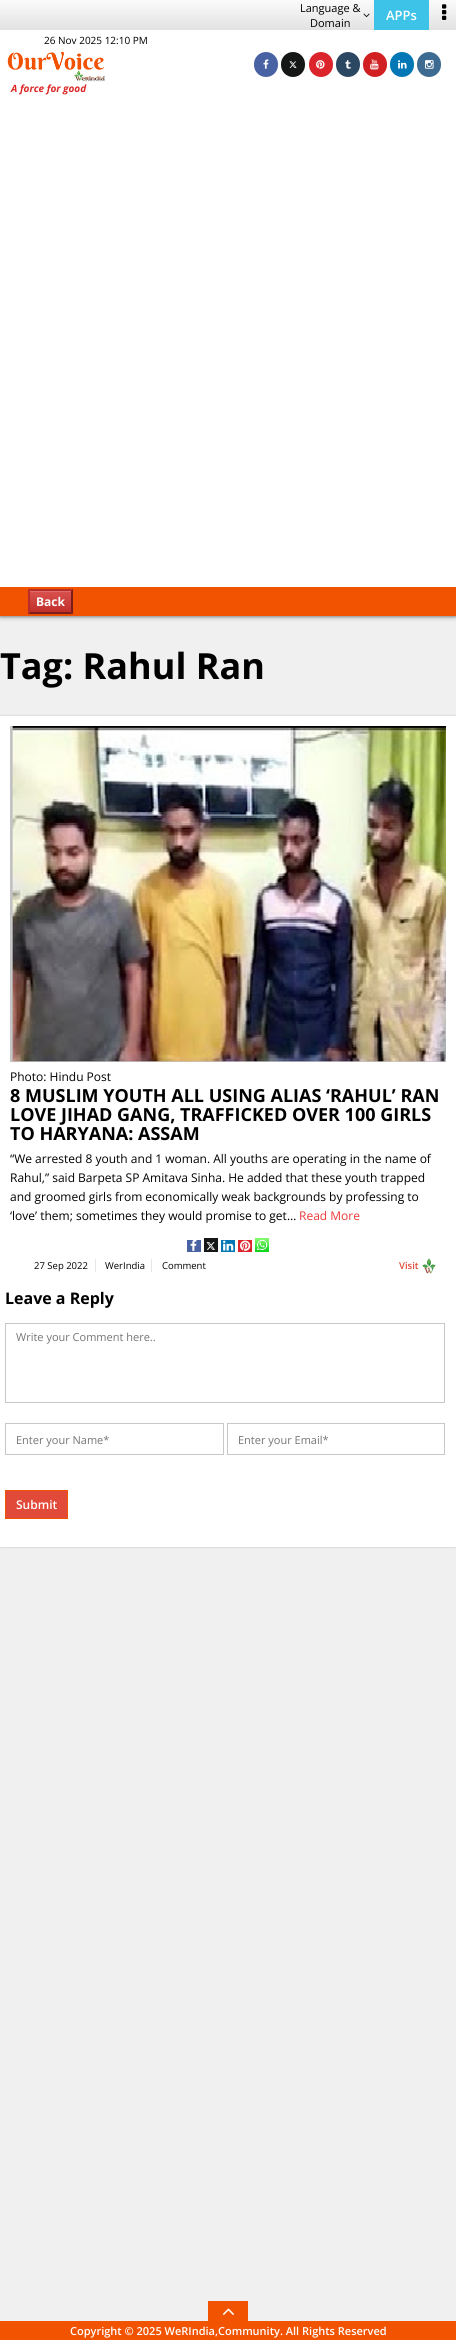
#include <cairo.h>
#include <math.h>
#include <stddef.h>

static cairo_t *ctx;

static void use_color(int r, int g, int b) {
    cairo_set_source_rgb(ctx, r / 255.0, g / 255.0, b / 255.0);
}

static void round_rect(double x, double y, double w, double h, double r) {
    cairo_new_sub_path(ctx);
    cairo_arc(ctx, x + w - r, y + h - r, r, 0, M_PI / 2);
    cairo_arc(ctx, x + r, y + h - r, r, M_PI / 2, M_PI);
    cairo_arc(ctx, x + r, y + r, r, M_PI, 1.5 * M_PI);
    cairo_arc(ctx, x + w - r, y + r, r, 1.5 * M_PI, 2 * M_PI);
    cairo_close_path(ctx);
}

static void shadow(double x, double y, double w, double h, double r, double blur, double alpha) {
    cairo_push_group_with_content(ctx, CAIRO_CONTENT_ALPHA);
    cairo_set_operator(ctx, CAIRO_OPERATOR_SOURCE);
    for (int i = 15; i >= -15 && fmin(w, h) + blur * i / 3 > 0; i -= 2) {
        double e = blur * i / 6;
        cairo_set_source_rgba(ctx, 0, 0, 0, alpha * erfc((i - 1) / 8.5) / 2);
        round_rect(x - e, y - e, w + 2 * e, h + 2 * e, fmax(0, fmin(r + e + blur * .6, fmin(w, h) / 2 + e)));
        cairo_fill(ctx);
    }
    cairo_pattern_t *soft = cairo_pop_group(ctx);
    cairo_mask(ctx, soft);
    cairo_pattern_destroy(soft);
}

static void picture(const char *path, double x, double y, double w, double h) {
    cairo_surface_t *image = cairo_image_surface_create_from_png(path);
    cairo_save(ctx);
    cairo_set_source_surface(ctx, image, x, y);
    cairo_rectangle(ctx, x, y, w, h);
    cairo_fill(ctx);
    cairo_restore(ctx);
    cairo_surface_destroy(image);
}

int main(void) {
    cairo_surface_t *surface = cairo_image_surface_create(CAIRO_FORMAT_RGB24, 456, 2340);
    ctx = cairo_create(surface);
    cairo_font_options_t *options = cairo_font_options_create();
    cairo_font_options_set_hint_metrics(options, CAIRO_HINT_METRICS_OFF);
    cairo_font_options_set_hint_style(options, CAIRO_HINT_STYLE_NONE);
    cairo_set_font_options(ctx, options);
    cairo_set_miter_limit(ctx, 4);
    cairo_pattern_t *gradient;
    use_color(240, 240, 240);
    cairo_paint(ctx);
    use_color(0, 0, 0);
    shadow(0, 30, 456, 586, 0, 2.5, 0.7);
    use_color(255, 255, 255);
    cairo_rectangle(ctx, 0, 30, 456, 557);
    cairo_fill(ctx);
    gradient = cairo_pattern_create_linear(228, 0, 228, 30);
    cairo_pattern_add_color_stop_rgba(gradient, 0, 0.984, 0.984, 0.984, 1);
    cairo_pattern_add_color_stop_rgba(gradient, 1, 0.886, 0.886, 0.886, 1);
    cairo_set_source(ctx, gradient);
    cairo_pattern_destroy(gradient);
    cairo_rectangle(ctx, 0, 0, 456, 30);
    cairo_fill(ctx);
    cairo_select_font_face(ctx, "Open Sans", CAIRO_FONT_SLANT_NORMAL, CAIRO_FONT_WEIGHT_NORMAL);
    cairo_set_font_size(ctx, 11);
    use_color(0, 0, 0);
    cairo_move_to(ctx, 300, 12);
    cairo_show_text(ctx, "Language &");
    picture("img1.png", 363, 13, 7, 5);
    cairo_move_to(ctx, 310, 27);
    cairo_show_text(ctx, "Domain");
    use_color(61, 194, 232);
    cairo_rectangle(ctx, 374, 0, 55, 30);
    cairo_fill(ctx);
    cairo_select_font_face(ctx, "Open Sans SemiBold", CAIRO_FONT_SLANT_NORMAL, CAIRO_FONT_WEIGHT_NORMAL);
    cairo_set_font_size(ctx, 13);
    use_color(255, 255, 255);
    cairo_move_to(ctx, 386, 20);
    cairo_show_text(ctx, "APPs");
    picture("img2.png", 442, 4, 5, 16);
    cairo_select_font_face(ctx, "Open Sans", CAIRO_FONT_SLANT_NORMAL, CAIRO_FONT_WEIGHT_NORMAL);
    cairo_set_font_size(ctx, 10);
    use_color(0, 0, 0);
    cairo_move_to(ctx, 44, 44);
    cairo_show_text(ctx, "26 Nov 2025 12:10 PM");
    picture("img3.png", 7, 51, 98, 31);
    cairo_select_font_face(ctx, "Open Sans", CAIRO_FONT_SLANT_ITALIC, CAIRO_FONT_WEIGHT_BOLD);
    use_color(219, 39, 38);
    cairo_move_to(ctx, 11, 92);
    cairo_show_text(ctx, "A force for good");
    use_color(72, 98, 163);
    round_rect(254, 52, 24, 25, 12);
    cairo_fill(ctx);
    picture("img4.png", 263, 59, 6, 10);
    use_color(21, 22, 22);
    round_rect(281, 52, 24, 25, 12);
    cairo_fill(ctx);
    picture("img5.png", 289, 61, 8, 7);
    use_color(219, 36, 44);
    round_rect(309, 52, 24, 25, 12);
    cairo_fill(ctx);
    picture("img6.png", 316, 60, 9, 9);
    use_color(44, 71, 98);
    round_rect(336, 52, 24, 25, 12);
    cairo_fill(ctx);
    picture("img7.png", 345, 60, 6, 9);
    use_color(208, 32, 34);
    round_rect(363, 52, 24, 25, 12);
    cairo_fill(ctx);
    picture("img8.png", 370, 59, 9, 11);
    use_color(1, 119, 181);
    round_rect(390, 52, 24, 25, 12);
    cairo_fill(ctx);
    picture("img9.png", 398, 60, 9, 9);
    use_color(61, 107, 146);
    round_rect(417, 52, 24, 25, 12);
    cairo_fill(ctx);
    picture("img10.png", 425, 60, 9, 9);
    use_color(242, 83, 0);
    cairo_rectangle(ctx, 0, 587, 456, 29);
    cairo_fill(ctx);
    use_color(0, 0, 0);
    shadow(28, 590, 45, 25, 0, 0.5, 0.07);
    gradient = cairo_pattern_create_linear(51, 591, 51, 612);
    cairo_pattern_add_color_stop_rgba(gradient, 0, 0.851, 0.325, 0.31, 1);
    cairo_pattern_add_color_stop_rgba(gradient, 1, 0.757, 0.18, 0.165, 1);
    cairo_set_source(ctx, gradient);
    cairo_pattern_destroy(gradient);
    cairo_rectangle(ctx, 30, 592, 41, 20);
    cairo_fill(ctx);
    use_color(222, 108, 105);
    cairo_rectangle(ctx, 30, 591, 41, 1);
    cairo_fill(ctx);
    use_color(185, 44, 40);
    cairo_new_path(ctx);
    cairo_move_to(ctx, 28, 589);
    cairo_line_to(ctx, 73, 589);
    cairo_line_to(ctx, 71, 591);
    cairo_line_to(ctx, 30, 591);
    cairo_close_path(ctx);
    cairo_fill(ctx);
    use_color(123, 29, 27);
    cairo_new_path(ctx);
    cairo_move_to(ctx, 73, 589);
    cairo_line_to(ctx, 73, 614);
    cairo_line_to(ctx, 71, 612);
    cairo_line_to(ctx, 71, 591);
    cairo_close_path(ctx);
    cairo_fill(ctx);
    cairo_new_path(ctx);
    cairo_move_to(ctx, 73, 614);
    cairo_line_to(ctx, 28, 614);
    cairo_line_to(ctx, 30, 612);
    cairo_line_to(ctx, 71, 612);
    cairo_close_path(ctx);
    cairo_fill(ctx);
    use_color(185, 44, 40);
    cairo_new_path(ctx);
    cairo_move_to(ctx, 28, 614);
    cairo_line_to(ctx, 28, 589);
    cairo_line_to(ctx, 30, 591);
    cairo_line_to(ctx, 30, 612);
    cairo_close_path(ctx);
    cairo_fill(ctx);
    cairo_select_font_face(ctx, "Open Sans", CAIRO_FONT_SLANT_NORMAL, CAIRO_FONT_WEIGHT_BOLD);
    cairo_set_font_size(ctx, 12);
    use_color(255, 255, 255);
    cairo_move_to(ctx, 36, 606);
    cairo_show_text(ctx, "Back");
    cairo_set_font_size(ctx, 36);
    use_color(0, 0, 0);
    cairo_move_to(ctx, 0, 679);
    cairo_show_text(ctx, "Tag: Rahul Ran");
    use_color(0, 0, 0);
    shadow(0, 716, 456, 831, 0, 1, 0.2);
    use_color(255, 255, 255);
    cairo_rectangle(ctx, 0, 716, 456, 831);
    cairo_fill(ctx);
    picture("img11.png", 10, 726, 436, 336);
    cairo_select_font_face(ctx, "Open Sans", CAIRO_FONT_SLANT_NORMAL, CAIRO_FONT_WEIGHT_NORMAL);
    cairo_set_font_size(ctx, 12);
    use_color(0, 0, 0);
    cairo_move_to(ctx, 10, 1081);
    cairo_show_text(ctx, "Photo: Hindu Post");
    cairo_select_font_face(ctx, "Open Sans", CAIRO_FONT_SLANT_NORMAL, CAIRO_FONT_WEIGHT_BOLD);
    cairo_set_font_size(ctx, 18);
    cairo_move_to(ctx, 10, 1102);
    cairo_show_text(ctx, "8 MUSLIM YOUTH ALL USING ALIAS ‘RAHUL’ RAN");
    cairo_move_to(ctx, 10, 1121);
    cairo_show_text(ctx, "LOVE JIHAD GANG, TRAFFICKED OVER 100 GIRLS");
    cairo_move_to(ctx, 10, 1140);
    cairo_show_text(ctx, "TO HARYANA: ASSAM");
    cairo_select_font_face(ctx, "Open Sans", CAIRO_FONT_SLANT_NORMAL, CAIRO_FONT_WEIGHT_NORMAL);
    cairo_set_font_size(ctx, 12);
    cairo_move_to(ctx, 10, 1163);
    cairo_show_text(ctx, "“We arrested 8 youth and 1 woman. All youths are operating in the name of");
    cairo_move_to(ctx, 10, 1182);
    cairo_show_text(ctx, "Rahul,” said Barpeta SP Amitava Sinha. He added that these youth trapped");
    cairo_move_to(ctx, 10, 1201);
    cairo_show_text(ctx, "and groomed girls from economically weak backgrounds by professing to");
    cairo_move_to(ctx, 10, 1220);
    cairo_show_text(ctx, "‘love’ them; sometimes they would promise to get…");
    use_color(235, 56, 56);
    cairo_move_to(ctx, 299, 1220);
    cairo_show_text(ctx, "Read More");
    use_color(72, 98, 163);
    cairo_rectangle(ctx, 187, 1240, 14, 12);
    cairo_fill(ctx);
    picture("img12.png", 190, 1240, 7, 11);
    use_color(21, 22, 22);
    cairo_rectangle(ctx, 204, 1238, 14, 14);
    cairo_fill(ctx);
    picture("img13.png", 206, 1242, 9, 8);
    use_color(1, 119, 181);
    cairo_rectangle(ctx, 221, 1240, 14, 12);
    cairo_fill(ctx);
    picture("img14.png", 223, 1240, 11, 11);
    use_color(219, 36, 44);
    cairo_rectangle(ctx, 238, 1240, 14, 12);
    cairo_fill(ctx);
    picture("img15.png", 240, 1240, 11, 11);
    picture("img16.png", 255, 1238, 14, 14);
    use_color(230, 230, 230);
    cairo_rectangle(ctx, 95, 1259, 1, 13);
    cairo_fill(ctx);
    cairo_set_font_size(ctx, 9.5);
    use_color(0, 0, 0);
    cairo_move_to(ctx, 34, 1269);
    cairo_show_text(ctx, "27 Sep 2022");
    use_color(230, 230, 230);
    cairo_rectangle(ctx, 151, 1259, 1, 13);
    cairo_fill(ctx);
    use_color(0, 0, 0);
    cairo_move_to(ctx, 105, 1269);
    cairo_show_text(ctx, "WerIndia");
    cairo_move_to(ctx, 162, 1269);
    cairo_show_text(ctx, "Comment");
    cairo_select_font_face(ctx, "Open Sans SemiBold", CAIRO_FONT_SLANT_NORMAL, CAIRO_FONT_WEIGHT_NORMAL);
    use_color(225, 73, 56);
    cairo_move_to(ctx, 399, 1269);
    cairo_show_text(ctx, "Visit");
    picture("img17.png", 422, 1258, 14, 16);
    cairo_select_font_face(ctx, "Open Sans", CAIRO_FONT_SLANT_NORMAL, CAIRO_FONT_WEIGHT_BOLD);
    cairo_set_font_size(ctx, 16);
    use_color(0, 0, 0);
    cairo_move_to(ctx, 5, 1304);
    cairo_show_text(ctx, "Leave a Reply");
    cairo_rectangle(ctx, 5.5, 1323.5, 439, 79);
    use_color(201, 199, 199);
    cairo_set_line_width(ctx, 1);
    cairo_stroke(ctx);
    cairo_select_font_face(ctx, "Open Sans", CAIRO_FONT_SLANT_NORMAL, CAIRO_FONT_WEIGHT_NORMAL);
    cairo_set_font_size(ctx, 11);
    use_color(117, 117, 117);
    cairo_move_to(ctx, 16, 1341);
    cairo_show_text(ctx, "Write your Comment here..");
    cairo_rectangle(ctx, 5.5, 1423.5, 218, 31);
    use_color(201, 199, 199);
    cairo_stroke(ctx);
    use_color(117, 117, 117);
    cairo_move_to(ctx, 16, 1444);
    cairo_show_text(ctx, "Enter your Name*");
    cairo_rectangle(ctx, 227.5, 1423.5, 217, 31);
    use_color(201, 199, 199);
    cairo_stroke(ctx);
    use_color(117, 117, 117);
    cairo_move_to(ctx, 238, 1444);
    cairo_show_text(ctx, "Enter your Email*");
    use_color(225, 73, 56);
    cairo_rectangle(ctx, 5.5, 1490.5, 62, 28);
    cairo_fill_preserve(ctx);
    use_color(242, 83, 0);
    cairo_stroke(ctx);
    cairo_select_font_face(ctx, "Open Sans SemiBold", CAIRO_FONT_SLANT_NORMAL, CAIRO_FONT_WEIGHT_NORMAL);
    cairo_set_font_size(ctx, 12);
    use_color(255, 255, 255);
    cairo_move_to(ctx, 16, 1509);
    cairo_show_text(ctx, "Submit");
    use_color(242, 83, 0);
    cairo_rectangle(ctx, 0, 2321, 456, 19);
    cairo_fill(ctx);
    cairo_rectangle(ctx, 208, 2301, 40, 20);
    cairo_fill(ctx);
    picture("img18.png", 222, 2308, 12, 7);
    cairo_set_font_size(ctx, 11);
    use_color(255, 255, 255);
    cairo_move_to(ctx, 70, 2335);
    cairo_show_text(ctx, "Copyright © 2025 WeRIndia,Community. All Rights Reserved");
    cairo_surface_write_to_png(surface, "result.png");
    cairo_font_options_destroy(options);
    cairo_destroy(ctx);
    cairo_surface_destroy(surface);
    return 0;
}
